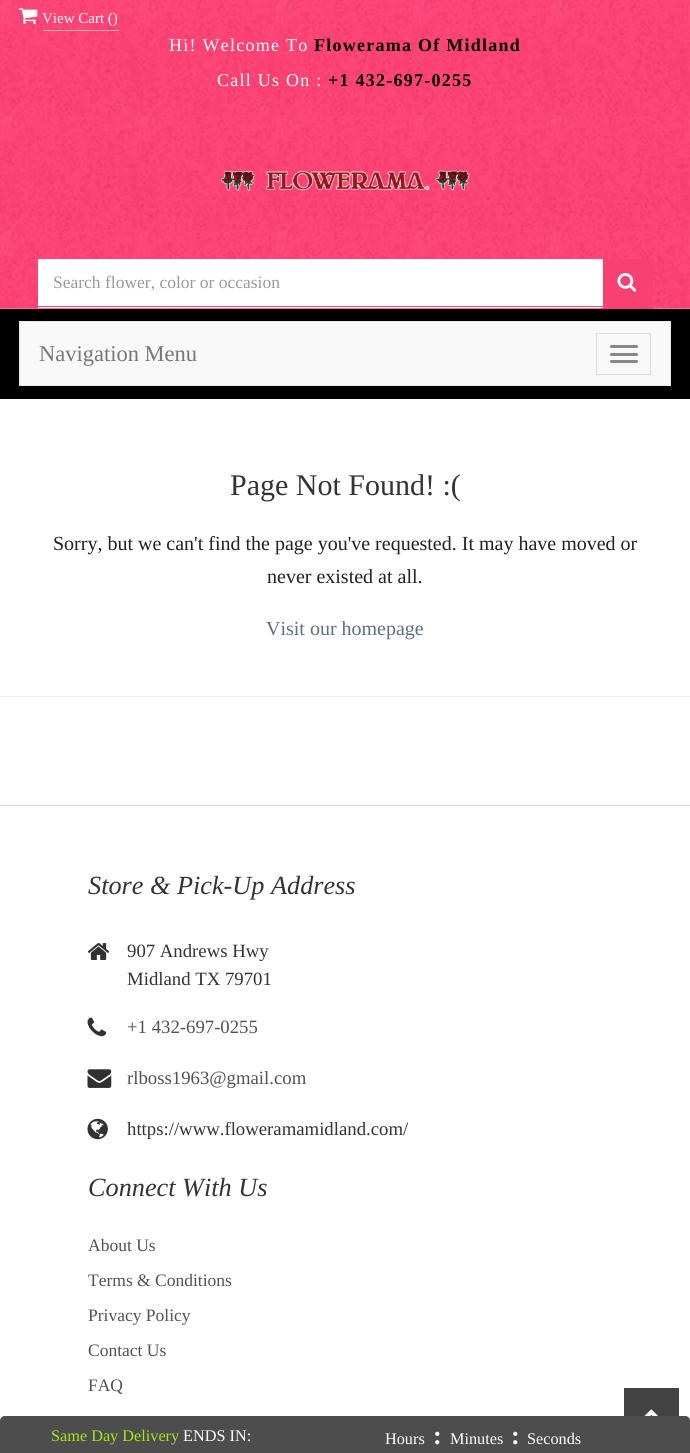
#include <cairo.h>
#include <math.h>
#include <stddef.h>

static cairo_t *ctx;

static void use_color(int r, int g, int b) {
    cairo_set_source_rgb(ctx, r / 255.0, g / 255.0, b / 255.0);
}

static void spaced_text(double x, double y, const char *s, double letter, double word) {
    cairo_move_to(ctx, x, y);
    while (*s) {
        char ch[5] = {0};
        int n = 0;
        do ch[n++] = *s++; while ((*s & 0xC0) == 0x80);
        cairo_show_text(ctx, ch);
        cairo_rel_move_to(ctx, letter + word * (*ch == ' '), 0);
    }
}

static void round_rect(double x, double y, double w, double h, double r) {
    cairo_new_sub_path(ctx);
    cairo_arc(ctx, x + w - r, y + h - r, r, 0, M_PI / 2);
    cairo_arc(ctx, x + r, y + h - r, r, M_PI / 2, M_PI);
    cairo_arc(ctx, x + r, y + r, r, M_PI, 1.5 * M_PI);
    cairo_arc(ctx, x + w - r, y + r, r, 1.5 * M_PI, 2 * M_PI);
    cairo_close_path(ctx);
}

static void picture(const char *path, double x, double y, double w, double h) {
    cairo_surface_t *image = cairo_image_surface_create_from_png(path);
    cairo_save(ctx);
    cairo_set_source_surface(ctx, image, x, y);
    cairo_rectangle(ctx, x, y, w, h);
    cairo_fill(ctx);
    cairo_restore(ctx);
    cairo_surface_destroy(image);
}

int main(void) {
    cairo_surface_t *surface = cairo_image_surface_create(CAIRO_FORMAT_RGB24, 690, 1453);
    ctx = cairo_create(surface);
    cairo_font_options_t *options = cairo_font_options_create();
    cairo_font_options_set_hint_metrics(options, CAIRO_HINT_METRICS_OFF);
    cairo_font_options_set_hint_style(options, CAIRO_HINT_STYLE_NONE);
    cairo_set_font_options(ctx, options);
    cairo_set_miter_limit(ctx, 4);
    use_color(255, 255, 255);
    cairo_paint(ctx);
    picture("img1.png", 0, 0, 690, 309);
    picture("img2.png", 18, 8, 20, 16);
    cairo_select_font_face(ctx, "Liberation Serif", CAIRO_FONT_SLANT_NORMAL, CAIRO_FONT_WEIGHT_NORMAL);
    cairo_set_font_size(ctx, 15);
    use_color(255, 255, 255);
    cairo_move_to(ctx, 42, 23);
    cairo_show_text(ctx, "View Cart ()");
    use_color(183, 183, 183);
    cairo_rectangle(ctx, 43, 30, 76, 1);
    cairo_fill(ctx);
    cairo_set_font_size(ctx, 18);
    use_color(255, 255, 255);
    spaced_text(169, 51, "Hi! Welcome To", 1.25, 0);
    cairo_select_font_face(ctx, "Liberation Serif", CAIRO_FONT_SLANT_NORMAL, CAIRO_FONT_WEIGHT_BOLD);
    use_color(0, 0, 0);
    spaced_text(314, 51, "Flowerama Of Midland", 1.25, 0);
    cairo_select_font_face(ctx, "Liberation Serif", CAIRO_FONT_SLANT_NORMAL, CAIRO_FONT_WEIGHT_NORMAL);
    use_color(255, 255, 255);
    spaced_text(217, 86, "Call Us On :", 1.25, 0);
    cairo_select_font_face(ctx, "Liberation Serif", CAIRO_FONT_SLANT_NORMAL, CAIRO_FONT_WEIGHT_BOLD);
    use_color(0, 0, 0);
    spaced_text(328, 86, "+1 432-697-0255", 1.25, 0);
    picture("img3.png", 220, 170, 250, 22);
    use_color(248, 64, 114);
    cairo_rectangle(ctx, 601, 259, 52, 50);
    cairo_fill(ctx);
    use_color(255, 255, 255);
    cairo_rectangle(ctx, 38, 259, 565, 49);
    cairo_fill(ctx);
    use_color(248, 64, 114);
    cairo_rectangle(ctx, 38, 306, 565, 1);
    cairo_fill(ctx);
    cairo_select_font_face(ctx, "Liberation Serif", CAIRO_FONT_SLANT_NORMAL, CAIRO_FONT_WEIGHT_NORMAL);
    cairo_set_font_size(ctx, 17.5);
    use_color(153, 153, 153);
    cairo_move_to(ctx, 53, 288);
    cairo_show_text(ctx, "Search flower, color or occasion");
    picture("img4.png", 617, 273, 20, 19);
    use_color(0, 0, 0);
    cairo_rectangle(ctx, 0, 309, 690, 90);
    cairo_fill(ctx);
    use_color(248, 248, 248);
    cairo_rectangle(ctx, 19.5, 321.5, 651, 64);
    cairo_fill_preserve(ctx);
    use_color(231, 231, 231);
    cairo_set_line_width(ctx, 1);
    cairo_stroke(ctx);
    cairo_set_font_size(ctx, 22.5);
    use_color(119, 119, 119);
    cairo_move_to(ctx, 39, 361);
    cairo_show_text(ctx, "Navigation Menu");
    cairo_rectangle(ctx, 596.5, 333.5, 54, 41);
    use_color(221, 221, 221);
    cairo_stroke(ctx);
    use_color(136, 136, 136);
    round_rect(610, 345, 28, 3, 1.5);
    cairo_fill(ctx);
    round_rect(610, 353, 28, 3, 1.5);
    cairo_fill(ctx);
    round_rect(610, 360, 28, 3, 1.5);
    cairo_fill(ctx);
    cairo_set_font_size(ctx, 30);
    use_color(51, 51, 51);
    cairo_move_to(ctx, 230, 495);
    cairo_show_text(ctx, "Page Not Found! :(");
    cairo_set_font_size(ctx, 20);
    use_color(33, 33, 33);
    cairo_move_to(ctx, 53, 550);
    cairo_show_text(ctx, "Sorry, but we can't find the page you've requested. It may have moved or");
    cairo_move_to(ctx, 267, 583);
    cairo_show_text(ctx, "never existed at all.");
    use_color(91, 112, 131);
    cairo_move_to(ctx, 266, 635);
    cairo_show_text(ctx, "Visit our homepage");
    use_color(238, 238, 238);
    cairo_rectangle(ctx, 0, 696, 690, 1);
    cairo_fill(ctx);
    use_color(212, 212, 212);
    cairo_rectangle(ctx, 0, 805, 690, 1);
    cairo_fill(ctx);
    cairo_select_font_face(ctx, "Liberation Serif", CAIRO_FONT_SLANT_ITALIC, CAIRO_FONT_WEIGHT_NORMAL);
    cairo_set_font_size(ctx, 26.25);
    use_color(51, 51, 51);
    cairo_move_to(ctx, 88, 894);
    cairo_show_text(ctx, "Store & Pick-Up Address");
    picture("img5.png", 87, 943, 23, 17);
    cairo_select_font_face(ctx, "Liberation Serif", CAIRO_FONT_SLANT_NORMAL, CAIRO_FONT_WEIGHT_NORMAL);
    cairo_set_font_size(ctx, 18.75);
    cairo_move_to(ctx, 127, 957);
    cairo_show_text(ctx, "907 Andrews Hwy");
    cairo_move_to(ctx, 127, 985);
    cairo_show_text(ctx, "Midland TX 79701");
    picture("img6.png", 87, 1017, 20, 20);
    use_color(82, 82, 82);
    cairo_move_to(ctx, 127, 1033);
    cairo_show_text(ctx, "+1 432-697-0255");
    picture("img7.png", 87, 1069, 25, 19);
    cairo_move_to(ctx, 127, 1084);
    cairo_show_text(ctx, "rlboss1963@gmail.com");
    picture("img8.png", 87, 1118, 21, 22);
    use_color(51, 51, 51);
    cairo_move_to(ctx, 127, 1135);
    cairo_show_text(ctx, "https://www.floweramamidland.com/");
    cairo_select_font_face(ctx, "Liberation Serif", CAIRO_FONT_SLANT_ITALIC, CAIRO_FONT_WEIGHT_NORMAL);
    cairo_set_font_size(ctx, 26.25);
    cairo_move_to(ctx, 88, 1196);
    cairo_show_text(ctx, "Connect With Us");
    cairo_select_font_face(ctx, "Liberation Serif", CAIRO_FONT_SLANT_NORMAL, CAIRO_FONT_WEIGHT_NORMAL);
    cairo_set_font_size(ctx, 17.5);
    use_color(82, 82, 82);
    cairo_move_to(ctx, 88, 1251);
    cairo_show_text(ctx, "About Us");
    cairo_move_to(ctx, 88, 1286);
    cairo_show_text(ctx, "Terms & Conditions");
    cairo_move_to(ctx, 88, 1321);
    cairo_show_text(ctx, "Privacy Policy");
    cairo_move_to(ctx, 88, 1356);
    cairo_show_text(ctx, "Contact Us");
    cairo_move_to(ctx, 88, 1391);
    cairo_show_text(ctx, "FAQ");
    use_color(66, 66, 66);
    cairo_rectangle(ctx, 624, 1388, 55, 28);
    cairo_fill(ctx);
    picture("img9.png", 644, 1409, 14, 7);
    use_color(77, 77, 77);
    cairo_new_path(ctx);
    cairo_move_to(ctx, 5, 1416);
    cairo_line_to(ctx, 685, 1416);
    cairo_curve_to(ctx, 688, 1416, 690, 1418, 690, 1421);
    cairo_line_to(ctx, 690, 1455);
    cairo_line_to(ctx, 0, 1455);
    cairo_line_to(ctx, 0, 1421);
    cairo_curve_to(ctx, 0, 1418, 2, 1416, 5, 1416);
    cairo_close_path(ctx);
    cairo_fill(ctx);
    cairo_set_font_size(ctx, 16.25);
    use_color(164, 232, 24);
    cairo_move_to(ctx, 51, 1441);
    cairo_show_text(ctx, "Same Day Delivery");
    use_color(255, 255, 255);
    cairo_move_to(ctx, 183, 1441);
    cairo_show_text(ctx, "ENDS IN:");
    cairo_move_to(ctx, 385, 1444);
    cairo_show_text(ctx, "Hours");
    cairo_select_font_face(ctx, "Liberation Serif", CAIRO_FONT_SLANT_NORMAL, CAIRO_FONT_WEIGHT_BOLD);
    cairo_set_font_size(ctx, 26.25);
    cairo_move_to(ctx, 433, 1444);
    cairo_show_text(ctx, ":");
    cairo_select_font_face(ctx, "Liberation Serif", CAIRO_FONT_SLANT_NORMAL, CAIRO_FONT_WEIGHT_NORMAL);
    cairo_set_font_size(ctx, 16.25);
    cairo_move_to(ctx, 450, 1444);
    cairo_show_text(ctx, "Minutes");
    cairo_select_font_face(ctx, "Liberation Serif", CAIRO_FONT_SLANT_NORMAL, CAIRO_FONT_WEIGHT_BOLD);
    cairo_set_font_size(ctx, 26.25);
    cairo_move_to(ctx, 511, 1444);
    cairo_show_text(ctx, ":");
    cairo_select_font_face(ctx, "Liberation Serif", CAIRO_FONT_SLANT_NORMAL, CAIRO_FONT_WEIGHT_NORMAL);
    cairo_set_font_size(ctx, 16.25);
    cairo_move_to(ctx, 527, 1444);
    cairo_show_text(ctx, "Seconds");
    cairo_surface_write_to_png(surface, "result.png");
    cairo_font_options_destroy(options);
    cairo_destroy(ctx);
    cairo_surface_destroy(surface);
    return 0;
}
